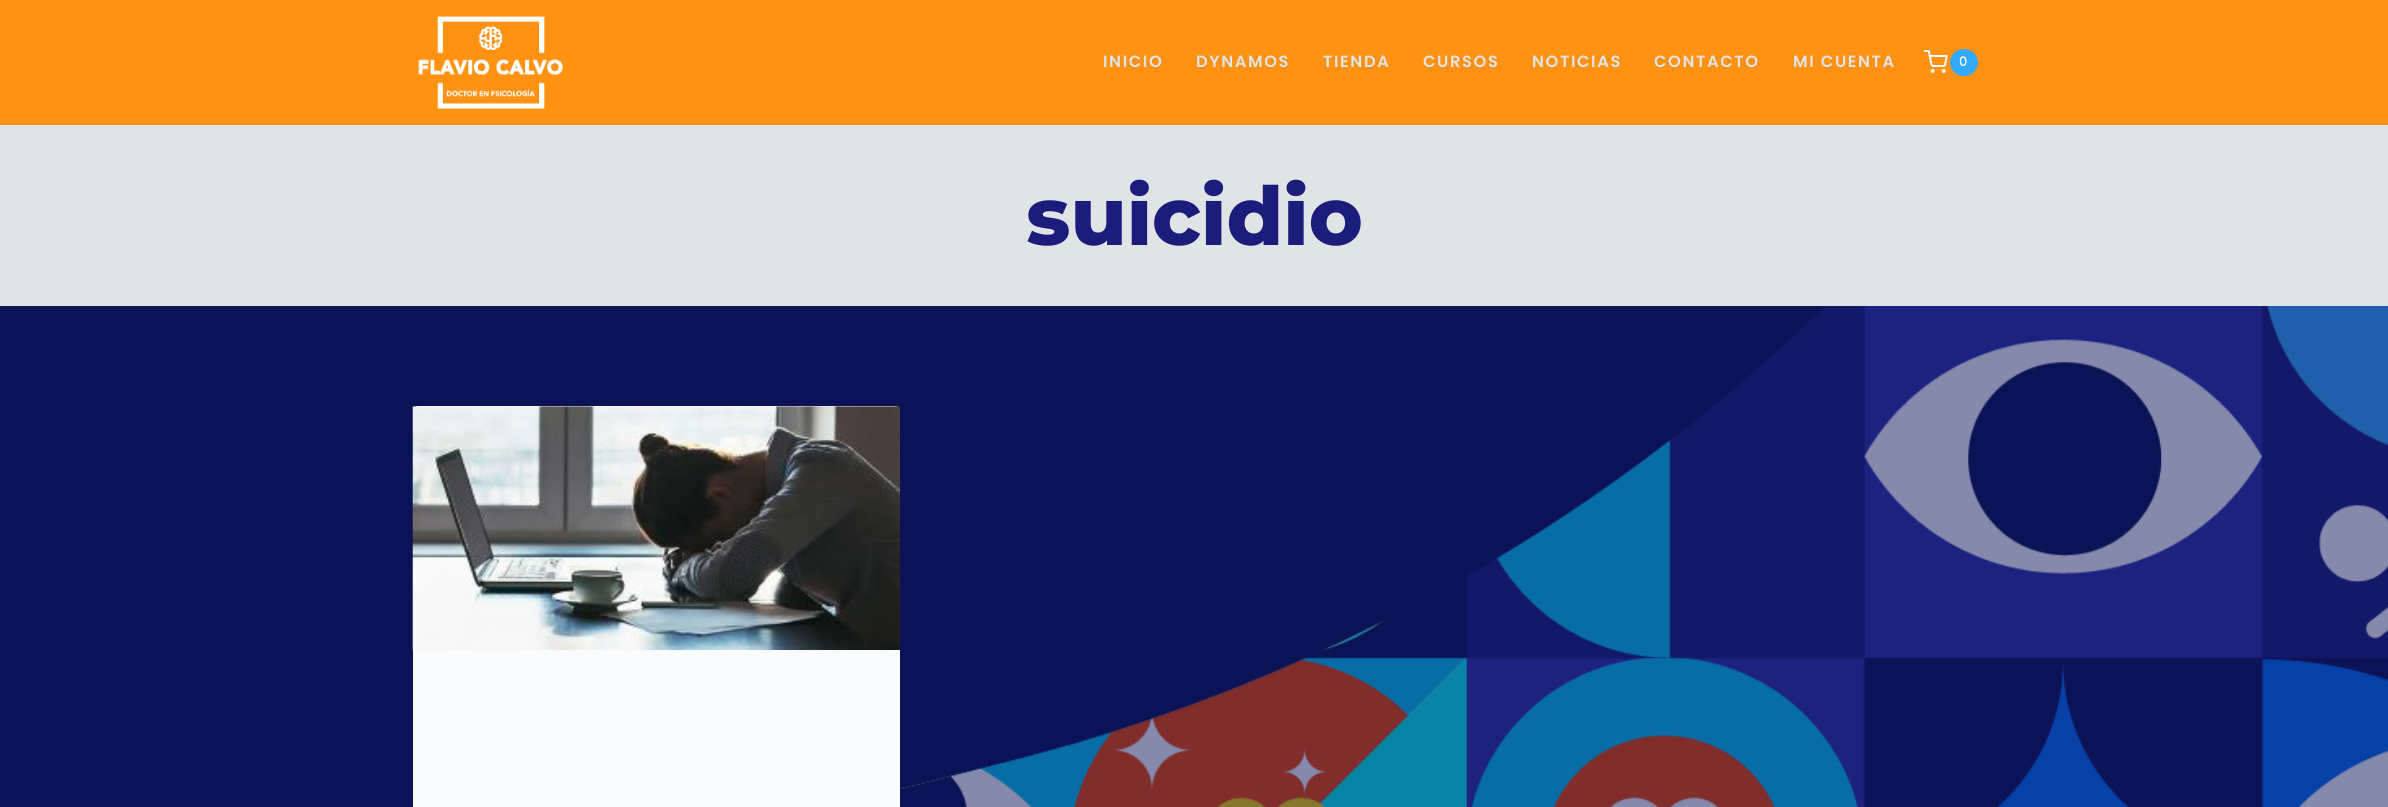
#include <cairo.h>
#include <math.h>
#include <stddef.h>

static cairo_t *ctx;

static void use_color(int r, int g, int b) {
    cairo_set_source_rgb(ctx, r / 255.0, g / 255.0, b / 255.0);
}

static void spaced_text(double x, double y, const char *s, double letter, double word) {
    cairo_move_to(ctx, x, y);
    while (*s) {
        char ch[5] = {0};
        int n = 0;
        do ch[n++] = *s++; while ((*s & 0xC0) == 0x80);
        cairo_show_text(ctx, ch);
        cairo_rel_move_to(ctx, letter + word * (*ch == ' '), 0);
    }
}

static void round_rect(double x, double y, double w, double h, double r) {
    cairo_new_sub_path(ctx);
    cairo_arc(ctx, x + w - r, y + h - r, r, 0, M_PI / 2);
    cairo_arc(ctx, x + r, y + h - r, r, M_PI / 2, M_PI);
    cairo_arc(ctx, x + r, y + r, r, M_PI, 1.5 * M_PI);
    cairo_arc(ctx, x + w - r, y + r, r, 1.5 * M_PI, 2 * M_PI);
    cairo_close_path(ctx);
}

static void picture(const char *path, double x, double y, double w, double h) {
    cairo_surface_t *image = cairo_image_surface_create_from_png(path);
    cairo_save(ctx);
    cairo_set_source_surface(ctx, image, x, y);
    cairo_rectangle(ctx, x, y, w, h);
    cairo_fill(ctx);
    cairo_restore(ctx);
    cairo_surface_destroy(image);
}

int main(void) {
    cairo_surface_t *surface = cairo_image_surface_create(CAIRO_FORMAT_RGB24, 2388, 807);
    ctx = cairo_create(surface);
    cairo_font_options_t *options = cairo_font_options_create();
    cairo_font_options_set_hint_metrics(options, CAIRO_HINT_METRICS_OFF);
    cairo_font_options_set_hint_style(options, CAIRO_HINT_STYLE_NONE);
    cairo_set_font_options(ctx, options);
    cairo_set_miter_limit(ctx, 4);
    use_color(255, 255, 255);
    cairo_paint(ctx);
    picture("img1.png", 0, 306, 2388, 501);
    use_color(255, 145, 19);
    cairo_rectangle(ctx, 0, 0, 2388, 125);
    cairo_fill(ctx);
    picture("img2.png", 418, 16, 145, 93);
    cairo_select_font_face(ctx, "Poppins SemiBold", CAIRO_FONT_SLANT_NORMAL, CAIRO_FONT_WEIGHT_NORMAL);
    cairo_set_font_size(ctx, 16.25);
    use_color(223, 228, 229);
    spaced_text(1103, 67, "INICIO", 1.6, 0);
    spaced_text(1196, 67, "DYNAMOS", 1.6, 0);
    spaced_text(1323, 67, "TIENDA", 1.6, 0);
    spaced_text(1423, 67, "CURSOS", 1.6, 0);
    spaced_text(1532, 67, "NOTICIAS", 1.6, 0);
    spaced_text(1654, 67, "CONTACTO", 1.6, 0);
    spaced_text(1793, 67, "MI CUENTA", 1.6, 0);
    picture("img3.png", 1924, 50, 24, 23);
    use_color(50, 170, 255);
    round_rect(1950, 49, 28, 27, 13.5);
    cairo_fill(ctx);
    cairo_select_font_face(ctx, "Poppins Medium", CAIRO_FONT_SLANT_NORMAL, CAIRO_FONT_WEIGHT_NORMAL);
    cairo_set_font_size(ctx, 13);
    use_color(255, 255, 255);
    cairo_move_to(ctx, 1959, 66);
    cairo_show_text(ctx, "0");
    use_color(223, 228, 229);
    cairo_rectangle(ctx, 0, 125, 2388, 181);
    cairo_fill(ctx);
    cairo_select_font_face(ctx, "Montserrat ExtraBold", CAIRO_FONT_SLANT_NORMAL, CAIRO_FONT_WEIGHT_NORMAL);
    cairo_set_font_size(ctx, 81.25);
    use_color(28, 28, 124);
    cairo_move_to(ctx, 1026, 245);
    cairo_show_text(ctx, "suicidio");
    use_color(249, 251, 253);
    round_rect(413, 406, 487, 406, 5);
    cairo_fill(ctx);
    picture("img4.png", 412, 406, 488, 244);
    cairo_surface_write_to_png(surface, "result.png");
    cairo_font_options_destroy(options);
    cairo_destroy(ctx);
    cairo_surface_destroy(surface);
    return 0;
}
